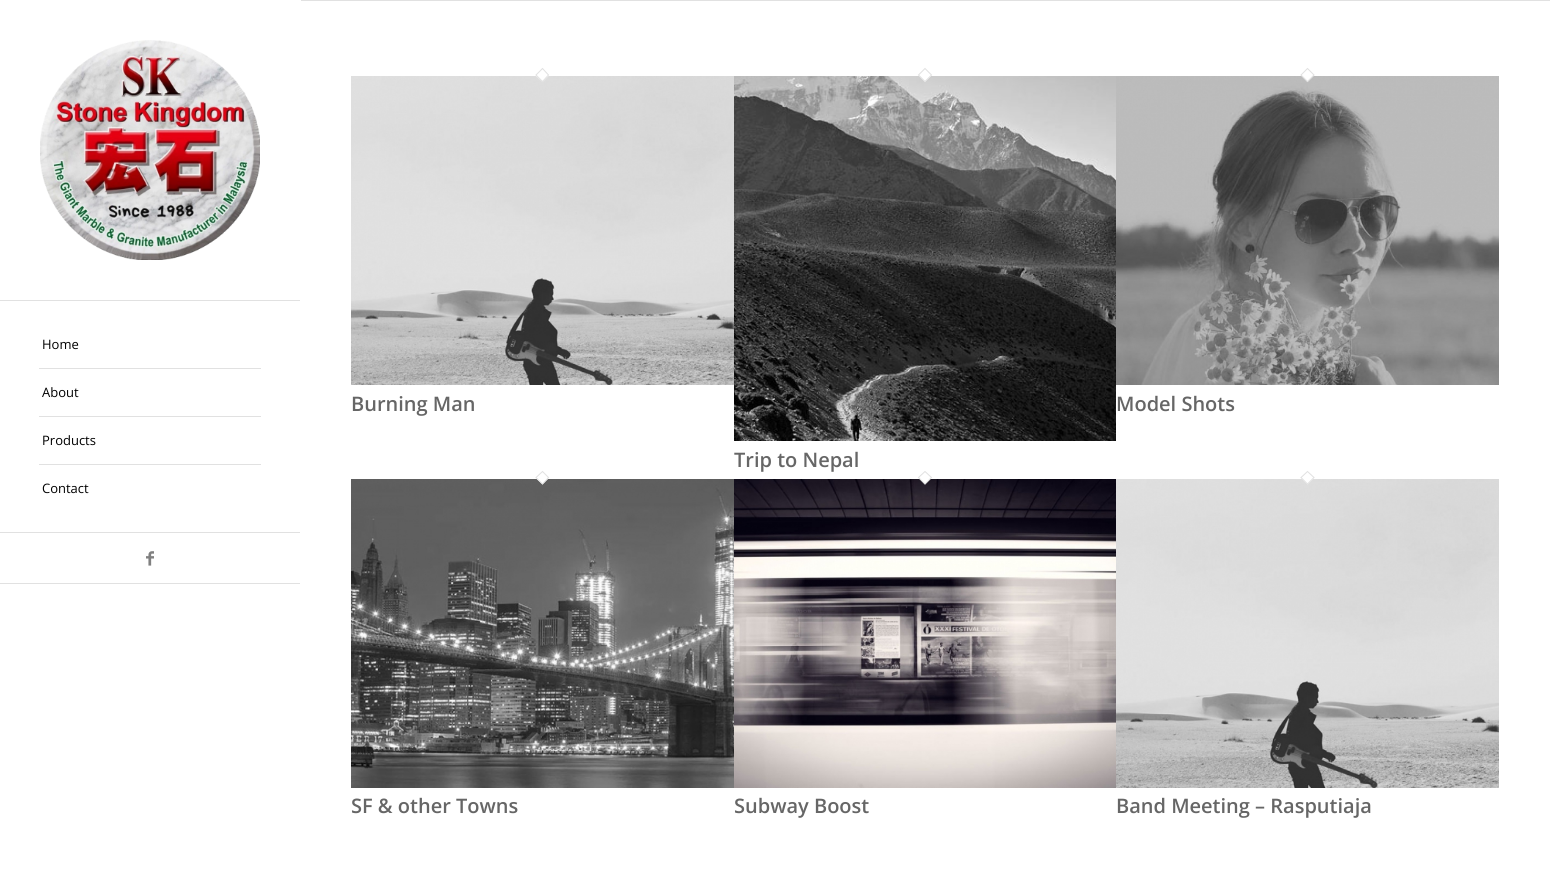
#include <cairo.h>
#include <math.h>
#include <stddef.h>

static cairo_t *ctx;

static void use_color(int r, int g, int b) {
    cairo_set_source_rgb(ctx, r / 255.0, g / 255.0, b / 255.0);
}

static void picture(const char *path, double x, double y, double w, double h) {
    cairo_surface_t *image = cairo_image_surface_create_from_png(path);
    cairo_save(ctx);
    cairo_set_source_surface(ctx, image, x, y);
    cairo_rectangle(ctx, x, y, w, h);
    cairo_fill(ctx);
    cairo_restore(ctx);
    cairo_surface_destroy(image);
}

int main(void) {
    cairo_surface_t *surface = cairo_image_surface_create(CAIRO_FORMAT_RGB24, 1550, 888);
    ctx = cairo_create(surface);
    cairo_font_options_t *options = cairo_font_options_create();
    cairo_font_options_set_hint_metrics(options, CAIRO_HINT_METRICS_OFF);
    cairo_font_options_set_hint_style(options, CAIRO_HINT_STYLE_NONE);
    cairo_set_font_options(ctx, options);
    cairo_set_miter_limit(ctx, 4);
    use_color(255, 255, 255);
    cairo_paint(ctx);
    use_color(225, 225, 225);
    cairo_rectangle(ctx, 0, 583, 300, 1);
    cairo_fill(ctx);
    cairo_rectangle(ctx, 0, 300, 300, 1);
    cairo_fill(ctx);
    picture("img1.png", 40, 40, 220, 220);
    cairo_rectangle(ctx, 39, 368, 222, 1);
    cairo_fill(ctx);
    cairo_select_font_face(ctx, "Open Sans", CAIRO_FONT_SLANT_NORMAL, CAIRO_FONT_WEIGHT_NORMAL);
    cairo_set_font_size(ctx, 13);
    use_color(0, 0, 0);
    cairo_move_to(ctx, 42, 349);
    cairo_show_text(ctx, "Home");
    use_color(225, 225, 225);
    cairo_rectangle(ctx, 39, 416, 222, 1);
    cairo_fill(ctx);
    use_color(0, 0, 0);
    cairo_move_to(ctx, 42, 397);
    cairo_show_text(ctx, "About");
    use_color(225, 225, 225);
    cairo_rectangle(ctx, 39, 464, 222, 1);
    cairo_fill(ctx);
    use_color(0, 0, 0);
    cairo_move_to(ctx, 42, 445);
    cairo_show_text(ctx, "Products");
    cairo_move_to(ctx, 42, 493);
    cairo_show_text(ctx, "Contact");
    use_color(225, 225, 225);
    cairo_rectangle(ctx, 0, 532, 300, 1);
    cairo_fill(ctx);
    picture("img2.png", 146, 551, 8, 15);
    cairo_rectangle(ctx, 301, 0, 1249, 1);
    cairo_fill(ctx);
    picture("img3.png", 351, 76, 383, 309);
    use_color(255, 255, 255);
    cairo_new_path(ctx);
    cairo_move_to(ctx, 542.5, 68);
    cairo_line_to(ctx, 549.5, 75);
    cairo_line_to(ctx, 542.5, 82);
    cairo_line_to(ctx, 535, 75);
    cairo_close_path(ctx);
    cairo_fill(ctx);
    cairo_new_path(ctx);
    cairo_move_to(ctx, 542.5, 68.5);
    cairo_line_to(ctx, 548.5, 75);
    cairo_line_to(ctx, 542.5, 81.5);
    cairo_line_to(ctx, 536, 75);
    cairo_close_path(ctx);
    use_color(225, 225, 225);
    cairo_set_line_width(ctx, 1);
    cairo_stroke(ctx);
    cairo_select_font_face(ctx, "Open Sans SemiBold", CAIRO_FONT_SLANT_NORMAL, CAIRO_FONT_WEIGHT_NORMAL);
    cairo_set_font_size(ctx, 20);
    use_color(102, 102, 102);
    cairo_move_to(ctx, 351, 411);
    cairo_show_text(ctx, "Burning Man");
    picture("img4.png", 1116, 76, 383, 309);
    use_color(255, 255, 255);
    cairo_new_path(ctx);
    cairo_move_to(ctx, 1307.5, 68);
    cairo_line_to(ctx, 1314.5, 75);
    cairo_line_to(ctx, 1307.5, 82);
    cairo_line_to(ctx, 1300.5, 75);
    cairo_close_path(ctx);
    cairo_fill(ctx);
    cairo_new_path(ctx);
    cairo_move_to(ctx, 1307.5, 68.5);
    cairo_line_to(ctx, 1314, 75);
    cairo_line_to(ctx, 1307.5, 81.5);
    cairo_line_to(ctx, 1301, 75);
    cairo_close_path(ctx);
    use_color(225, 225, 225);
    cairo_stroke(ctx);
    use_color(102, 102, 102);
    cairo_move_to(ctx, 1116, 411);
    cairo_show_text(ctx, "Model Shots");
    picture("img5.png", 734, 76, 382, 365);
    use_color(255, 255, 255);
    cairo_new_path(ctx);
    cairo_move_to(ctx, 925, 68);
    cairo_line_to(ctx, 932, 75);
    cairo_line_to(ctx, 925, 82);
    cairo_line_to(ctx, 918, 75);
    cairo_close_path(ctx);
    cairo_fill(ctx);
    cairo_new_path(ctx);
    cairo_move_to(ctx, 925, 68.5);
    cairo_line_to(ctx, 931.5, 75);
    cairo_line_to(ctx, 925, 81.5);
    cairo_line_to(ctx, 918.5, 75);
    cairo_close_path(ctx);
    use_color(225, 225, 225);
    cairo_stroke(ctx);
    use_color(102, 102, 102);
    cairo_move_to(ctx, 734, 467);
    cairo_show_text(ctx, "Trip to Nepal");
    picture("img6.png", 351, 479, 383, 309);
    use_color(255, 255, 255);
    cairo_new_path(ctx);
    cairo_move_to(ctx, 542.5, 470.5);
    cairo_line_to(ctx, 549.5, 477.5);
    cairo_line_to(ctx, 542.5, 484.5);
    cairo_line_to(ctx, 535, 477.5);
    cairo_close_path(ctx);
    cairo_fill(ctx);
    cairo_new_path(ctx);
    cairo_move_to(ctx, 542.5, 471.5);
    cairo_line_to(ctx, 548.5, 477.5);
    cairo_line_to(ctx, 542.5, 484);
    cairo_line_to(ctx, 536, 477.5);
    cairo_close_path(ctx);
    use_color(225, 225, 225);
    cairo_stroke(ctx);
    use_color(102, 102, 102);
    cairo_move_to(ctx, 351, 813);
    cairo_show_text(ctx, "SF & other Towns");
    picture("img7.png", 734, 479, 382, 309);
    use_color(255, 255, 255);
    cairo_new_path(ctx);
    cairo_move_to(ctx, 925, 470.5);
    cairo_line_to(ctx, 932, 477.5);
    cairo_line_to(ctx, 925, 484.5);
    cairo_line_to(ctx, 918, 477.5);
    cairo_close_path(ctx);
    cairo_fill(ctx);
    cairo_new_path(ctx);
    cairo_move_to(ctx, 925, 471.5);
    cairo_line_to(ctx, 931.5, 477.5);
    cairo_line_to(ctx, 925, 484);
    cairo_line_to(ctx, 918.5, 477.5);
    cairo_close_path(ctx);
    use_color(225, 225, 225);
    cairo_stroke(ctx);
    use_color(102, 102, 102);
    cairo_move_to(ctx, 734, 813);
    cairo_show_text(ctx, "Subway Boost");
    picture("img3.png", 1116, 479, 383, 309);
    use_color(255, 255, 255);
    cairo_new_path(ctx);
    cairo_move_to(ctx, 1307.5, 470.5);
    cairo_line_to(ctx, 1314.5, 477.5);
    cairo_line_to(ctx, 1307.5, 484.5);
    cairo_line_to(ctx, 1300.5, 477.5);
    cairo_close_path(ctx);
    cairo_fill(ctx);
    cairo_new_path(ctx);
    cairo_move_to(ctx, 1307.5, 471.5);
    cairo_line_to(ctx, 1314, 477.5);
    cairo_line_to(ctx, 1307.5, 484);
    cairo_line_to(ctx, 1301, 477.5);
    cairo_close_path(ctx);
    use_color(225, 225, 225);
    cairo_stroke(ctx);
    use_color(102, 102, 102);
    cairo_move_to(ctx, 1116, 813);
    cairo_show_text(ctx, "Band Meeting – Rasputiaja");
    cairo_surface_write_to_png(surface, "result.png");
    cairo_font_options_destroy(options);
    cairo_destroy(ctx);
    cairo_surface_destroy(surface);
    return 0;
}
